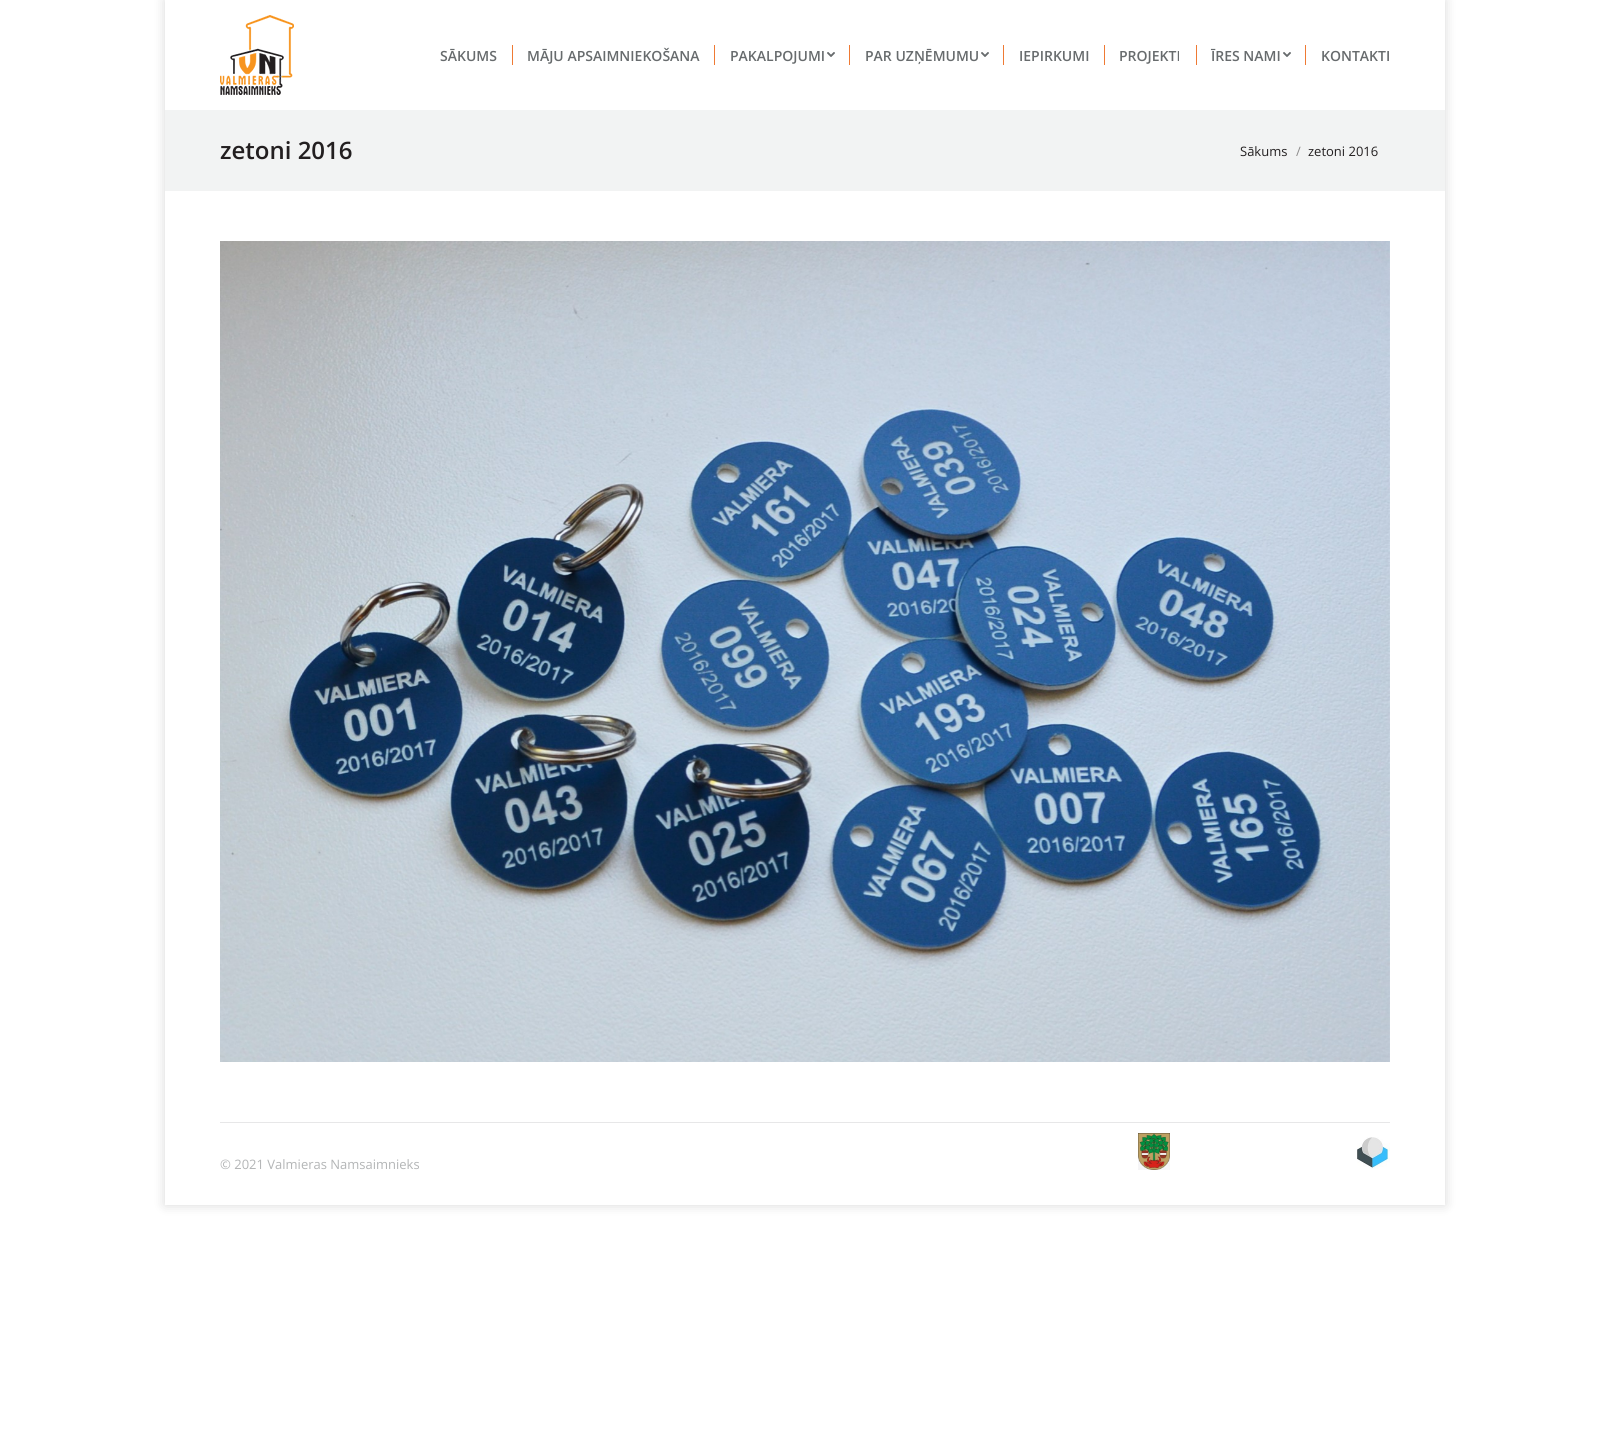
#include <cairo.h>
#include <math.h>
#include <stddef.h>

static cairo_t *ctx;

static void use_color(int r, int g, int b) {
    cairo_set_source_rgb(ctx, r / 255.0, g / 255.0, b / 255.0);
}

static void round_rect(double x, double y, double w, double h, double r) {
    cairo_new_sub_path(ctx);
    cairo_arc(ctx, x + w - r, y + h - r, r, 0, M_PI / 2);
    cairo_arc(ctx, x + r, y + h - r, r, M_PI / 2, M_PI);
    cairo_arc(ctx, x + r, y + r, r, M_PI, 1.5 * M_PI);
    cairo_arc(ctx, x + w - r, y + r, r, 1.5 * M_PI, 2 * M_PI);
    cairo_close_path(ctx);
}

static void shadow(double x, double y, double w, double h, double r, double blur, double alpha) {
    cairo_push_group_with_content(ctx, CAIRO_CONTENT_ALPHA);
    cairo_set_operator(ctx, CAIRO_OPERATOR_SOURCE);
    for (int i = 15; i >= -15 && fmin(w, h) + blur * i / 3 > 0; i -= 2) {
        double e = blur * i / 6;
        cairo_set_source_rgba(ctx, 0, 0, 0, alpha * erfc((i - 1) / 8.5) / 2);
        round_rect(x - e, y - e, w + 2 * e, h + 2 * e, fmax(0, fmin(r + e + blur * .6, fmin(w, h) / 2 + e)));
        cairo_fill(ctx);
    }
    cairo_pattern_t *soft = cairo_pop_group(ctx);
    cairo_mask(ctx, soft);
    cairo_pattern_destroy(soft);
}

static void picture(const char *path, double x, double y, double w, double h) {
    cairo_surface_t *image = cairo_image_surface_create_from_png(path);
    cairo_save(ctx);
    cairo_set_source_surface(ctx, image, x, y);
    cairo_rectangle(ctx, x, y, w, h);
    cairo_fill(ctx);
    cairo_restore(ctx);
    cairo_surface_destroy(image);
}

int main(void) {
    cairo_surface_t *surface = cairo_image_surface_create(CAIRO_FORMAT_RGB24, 1610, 1442);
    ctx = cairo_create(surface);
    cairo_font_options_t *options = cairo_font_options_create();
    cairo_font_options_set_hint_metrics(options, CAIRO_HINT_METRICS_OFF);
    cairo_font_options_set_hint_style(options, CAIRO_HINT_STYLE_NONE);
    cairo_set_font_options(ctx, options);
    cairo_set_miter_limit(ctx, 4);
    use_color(255, 255, 255);
    cairo_paint(ctx);
    cairo_save(ctx);
    cairo_set_fill_rule(ctx, CAIRO_FILL_RULE_EVEN_ODD);
    cairo_new_path(ctx);
    cairo_move_to(ctx, 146, 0);
    cairo_line_to(ctx, 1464, 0);
    cairo_line_to(ctx, 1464, 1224);
    cairo_line_to(ctx, 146, 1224);
    cairo_close_path(ctx);
    cairo_move_to(ctx, 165, 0);
    cairo_line_to(ctx, 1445, 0);
    cairo_line_to(ctx, 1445, 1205);
    cairo_line_to(ctx, 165, 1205);
    cairo_close_path(ctx);
    cairo_clip(ctx);
    use_color(0, 0, 0);
    shadow(165, 0, 1280, 1205, 0, 6, 0.15);
    cairo_restore(ctx);
    picture("img1.png", 220, 15, 74, 80);
    cairo_select_font_face(ctx, "Open Sans SemiBold", CAIRO_FONT_SLANT_NORMAL, CAIRO_FONT_WEIGHT_NORMAL);
    cairo_set_font_size(ctx, 14);
    use_color(103, 107, 109);
    cairo_move_to(ctx, 440, 61);
    cairo_show_text(ctx, "SĀKUMS");
    use_color(239, 122, 52);
    cairo_rectangle(ctx, 512, 45, 1, 20);
    cairo_fill(ctx);
    use_color(103, 107, 109);
    cairo_move_to(ctx, 527, 61);
    cairo_show_text(ctx, "MĀJU APSAIMNIEKOŠANA");
    use_color(239, 122, 52);
    cairo_rectangle(ctx, 714, 45, 1, 20);
    cairo_fill(ctx);
    use_color(103, 107, 109);
    cairo_move_to(ctx, 730, 61);
    cairo_show_text(ctx, "PAKALPOJUMI");
    picture("img2.png", 827, 52, 8, 5);
    use_color(239, 122, 52);
    cairo_rectangle(ctx, 849, 45, 1, 20);
    cairo_fill(ctx);
    use_color(103, 107, 109);
    cairo_move_to(ctx, 865, 61);
    cairo_show_text(ctx, "PAR UZŅĒMUMU");
    picture("img2.png", 981, 52, 8, 5);
    use_color(239, 122, 52);
    cairo_rectangle(ctx, 1003, 45, 1, 20);
    cairo_fill(ctx);
    use_color(103, 107, 109);
    cairo_move_to(ctx, 1019, 61);
    cairo_show_text(ctx, "IEPIRKUMI");
    use_color(239, 122, 52);
    cairo_rectangle(ctx, 1104, 45, 1, 20);
    cairo_fill(ctx);
    use_color(103, 107, 109);
    cairo_move_to(ctx, 1119, 61);
    cairo_show_text(ctx, "PROJEKTI");
    use_color(239, 122, 52);
    cairo_rectangle(ctx, 1196, 45, 1, 20);
    cairo_fill(ctx);
    use_color(103, 107, 109);
    cairo_move_to(ctx, 1211, 61);
    cairo_show_text(ctx, "ĪRES NAMI");
    picture("img2.png", 1283, 52, 8, 5);
    use_color(239, 122, 52);
    cairo_rectangle(ctx, 1305, 45, 1, 20);
    cairo_fill(ctx);
    use_color(103, 107, 109);
    cairo_move_to(ctx, 1321, 61);
    cairo_show_text(ctx, "KONTAKTI");
    use_color(242, 243, 243);
    cairo_rectangle(ctx, 165, 110, 1280, 81);
    cairo_fill(ctx);
    cairo_set_font_size(ctx, 24);
    use_color(35, 31, 32);
    cairo_move_to(ctx, 220, 159);
    cairo_show_text(ctx, "zetoni 2016");
    cairo_select_font_face(ctx, "Open Sans", CAIRO_FONT_SLANT_NORMAL, CAIRO_FONT_WEIGHT_NORMAL);
    cairo_set_font_size(ctx, 13);
    cairo_move_to(ctx, 1240, 156);
    cairo_show_text(ctx, "Sākums");
    use_color(140, 138, 138);
    cairo_move_to(ctx, 1296, 156);
    cairo_show_text(ctx, "/");
    use_color(35, 31, 32);
    cairo_move_to(ctx, 1308, 156);
    cairo_show_text(ctx, "zetoni 2016");
    picture("img3.png", 220, 241, 1170, 821);
    use_color(231, 231, 232);
    cairo_rectangle(ctx, 220, 1122, 1170, 1);
    cairo_fill(ctx);
    use_color(179, 181, 182);
    cairo_move_to(ctx, 220, 1169);
    cairo_show_text(ctx, "© 2021 Valmieras Namsaimnieks");
    picture("img4.png", 1138, 1133, 32, 37);
    picture("img5.png", 1357, 1137, 33, 32);
    cairo_surface_write_to_png(surface, "result.png");
    cairo_font_options_destroy(options);
    cairo_destroy(ctx);
    cairo_surface_destroy(surface);
    return 0;
}
